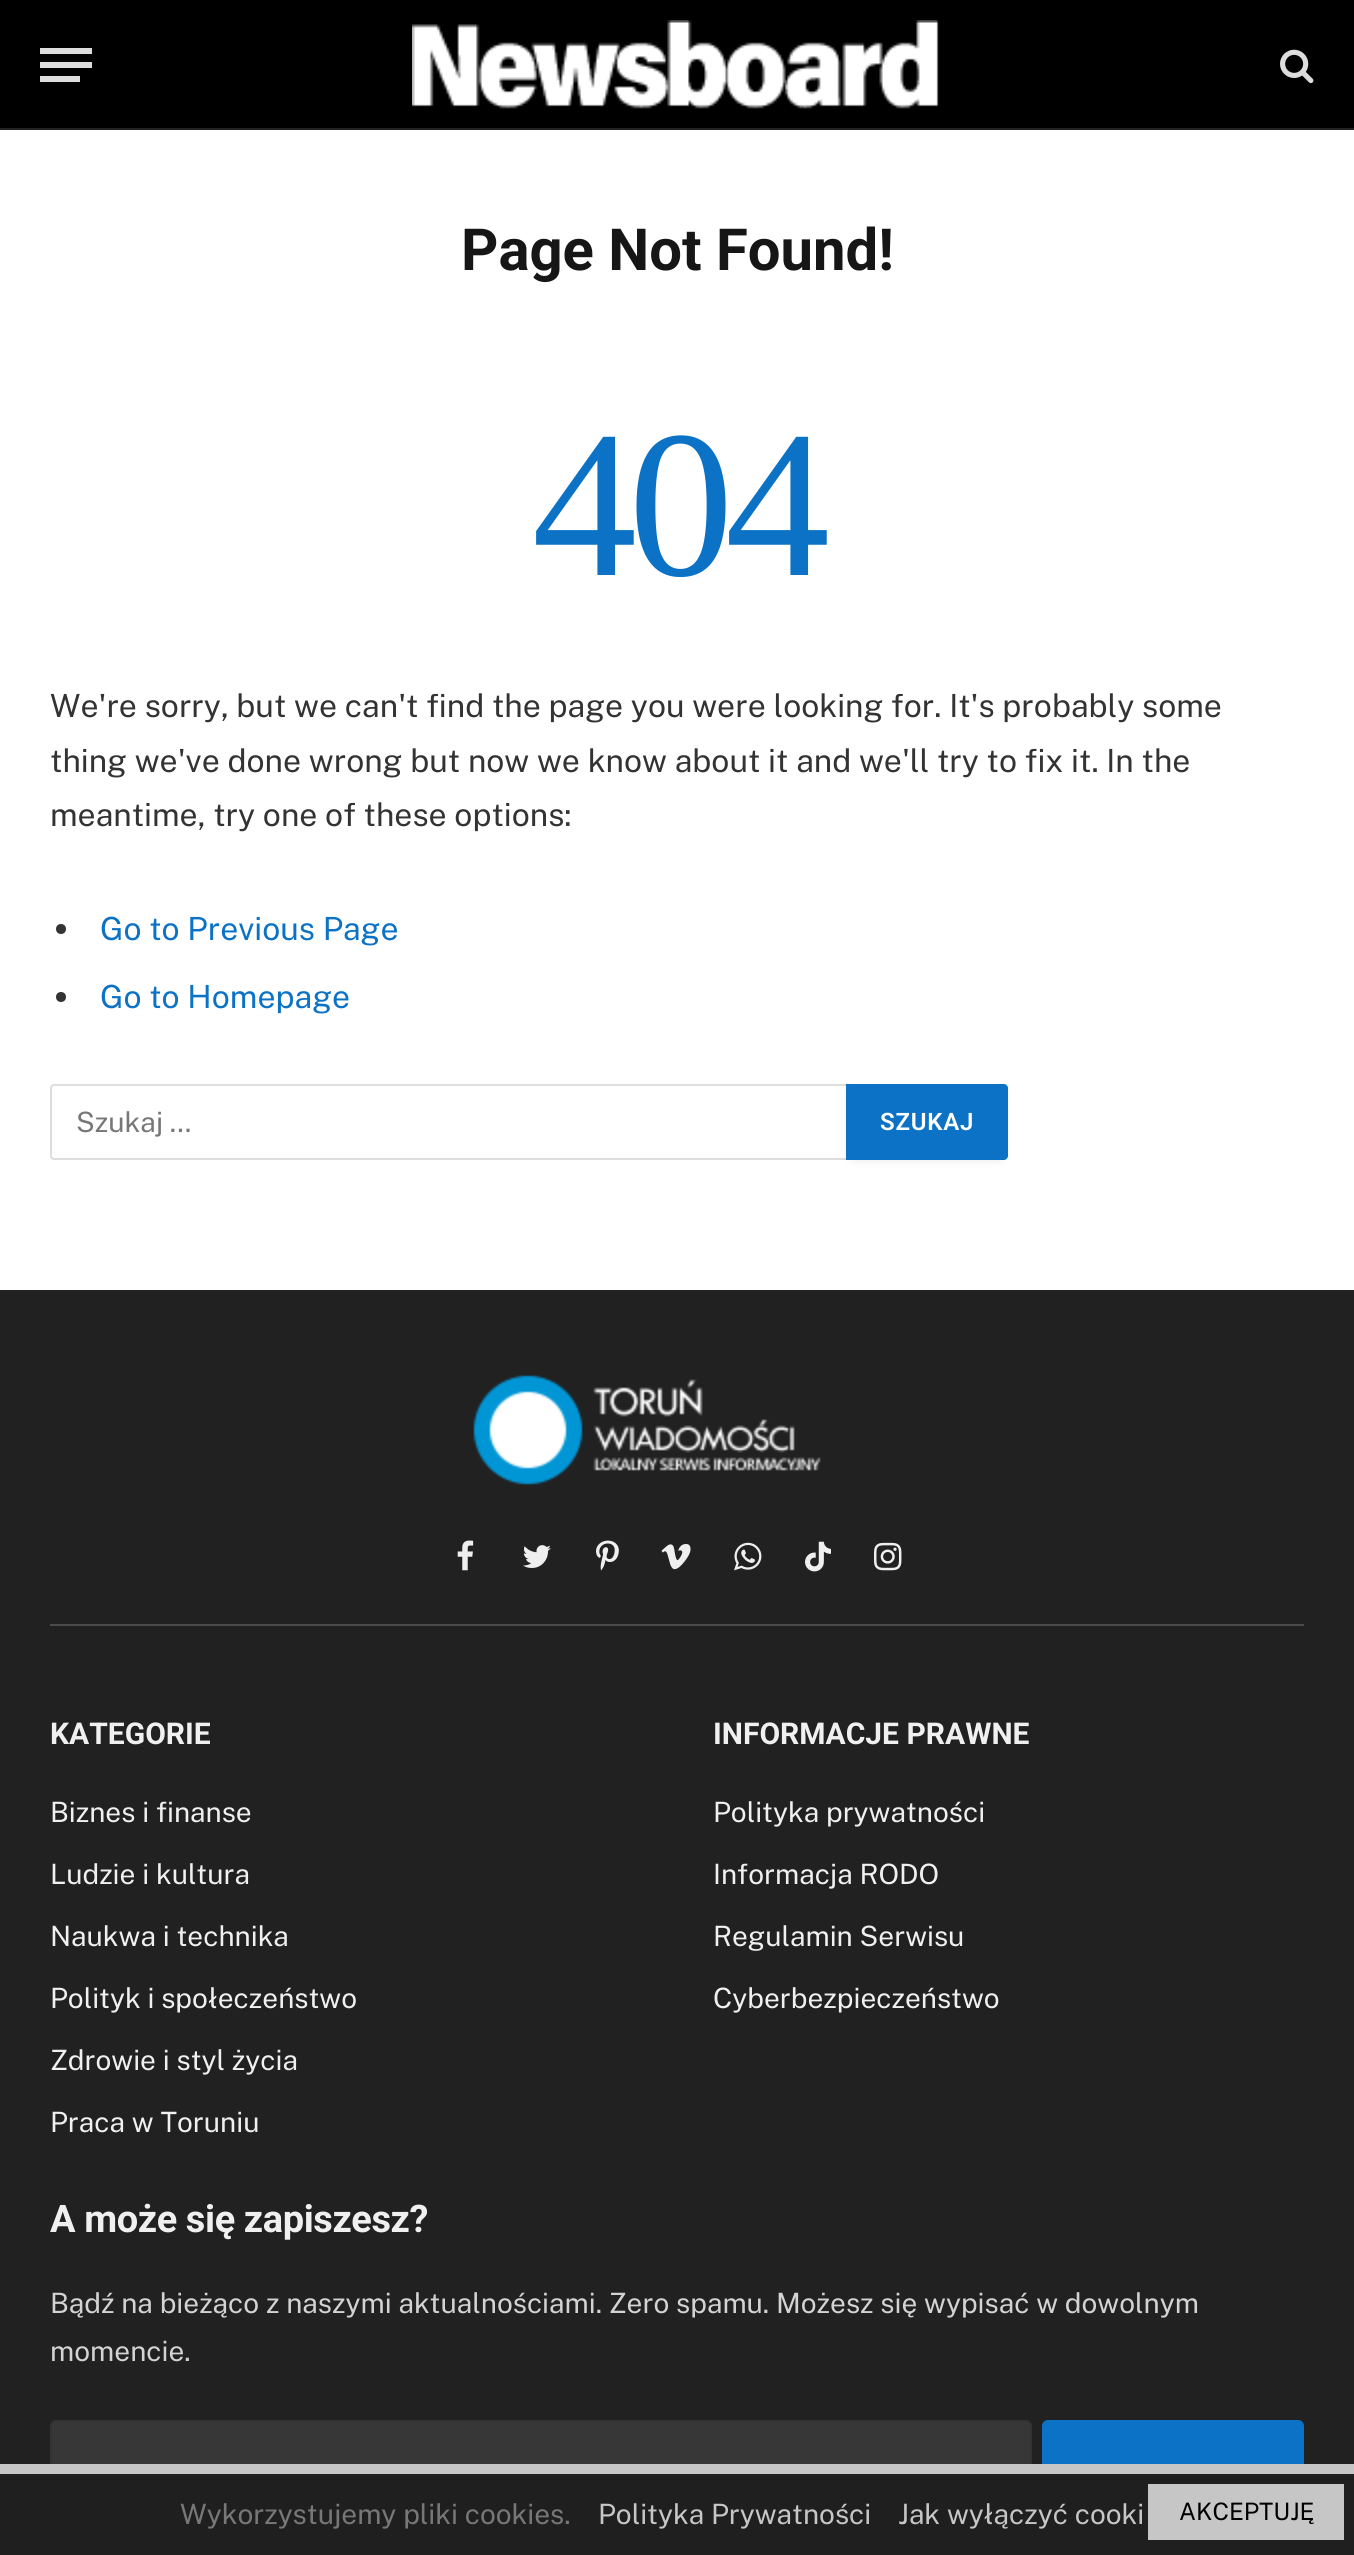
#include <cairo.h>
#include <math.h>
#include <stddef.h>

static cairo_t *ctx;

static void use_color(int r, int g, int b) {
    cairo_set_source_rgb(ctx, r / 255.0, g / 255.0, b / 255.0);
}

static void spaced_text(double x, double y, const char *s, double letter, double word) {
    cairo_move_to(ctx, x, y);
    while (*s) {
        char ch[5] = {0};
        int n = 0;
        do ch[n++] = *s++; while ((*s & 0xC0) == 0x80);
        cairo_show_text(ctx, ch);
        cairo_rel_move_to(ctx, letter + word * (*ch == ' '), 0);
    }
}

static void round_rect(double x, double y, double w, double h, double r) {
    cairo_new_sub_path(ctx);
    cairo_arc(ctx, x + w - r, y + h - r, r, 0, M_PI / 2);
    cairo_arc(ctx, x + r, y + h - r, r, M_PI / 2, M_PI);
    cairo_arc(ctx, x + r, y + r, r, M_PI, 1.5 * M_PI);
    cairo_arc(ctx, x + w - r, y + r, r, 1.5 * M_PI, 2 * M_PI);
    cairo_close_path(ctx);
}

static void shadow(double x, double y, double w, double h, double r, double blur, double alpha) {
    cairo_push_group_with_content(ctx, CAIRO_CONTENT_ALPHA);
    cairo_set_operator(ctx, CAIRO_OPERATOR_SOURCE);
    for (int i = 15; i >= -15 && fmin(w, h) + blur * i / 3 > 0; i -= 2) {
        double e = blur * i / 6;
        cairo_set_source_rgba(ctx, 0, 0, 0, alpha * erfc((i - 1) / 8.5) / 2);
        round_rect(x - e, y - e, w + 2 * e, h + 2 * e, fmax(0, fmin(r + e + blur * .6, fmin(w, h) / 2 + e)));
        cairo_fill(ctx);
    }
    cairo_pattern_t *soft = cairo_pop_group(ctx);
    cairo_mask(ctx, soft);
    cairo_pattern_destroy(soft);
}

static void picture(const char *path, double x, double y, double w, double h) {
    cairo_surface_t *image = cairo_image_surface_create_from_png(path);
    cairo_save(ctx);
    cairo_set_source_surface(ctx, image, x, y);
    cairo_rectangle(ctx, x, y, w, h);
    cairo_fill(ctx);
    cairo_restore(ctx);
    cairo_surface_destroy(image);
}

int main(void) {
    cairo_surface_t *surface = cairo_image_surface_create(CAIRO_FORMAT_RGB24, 1354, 2555);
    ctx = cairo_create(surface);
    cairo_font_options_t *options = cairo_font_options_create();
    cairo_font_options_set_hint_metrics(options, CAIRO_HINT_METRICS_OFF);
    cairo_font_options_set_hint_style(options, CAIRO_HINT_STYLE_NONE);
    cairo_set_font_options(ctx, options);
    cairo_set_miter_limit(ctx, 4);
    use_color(255, 255, 255);
    cairo_paint(ctx);
    use_color(0, 0, 0);
    cairo_rectangle(ctx, 0, 0, 1354, 128);
    cairo_fill(ctx);
    use_color(34, 34, 34);
    cairo_rectangle(ctx, 0, 128, 1354, 2);
    cairo_fill(ctx);
    use_color(221, 221, 221);
    cairo_rectangle(ctx, 40, 76, 40, 6);
    cairo_fill(ctx);
    cairo_rectangle(ctx, 40, 48, 52, 6);
    cairo_fill(ctx);
    cairo_rectangle(ctx, 40, 62, 52, 6);
    cairo_fill(ctx);
    picture("img1.png", 412, 20, 527, 89);
    picture("img2.png", 1280, 49, 34, 35);
    cairo_select_font_face(ctx, "Roboto", CAIRO_FONT_SLANT_NORMAL, CAIRO_FONT_WEIGHT_BOLD);
    cairo_set_font_size(ctx, 58);
    use_color(22, 22, 22);
    cairo_move_to(ctx, 461, 270);
    cairo_show_text(ctx, "Page Not Found!");
    cairo_select_font_face(ctx, "Liberation Serif", CAIRO_FONT_SLANT_NORMAL, CAIRO_FONT_WEIGHT_NORMAL);
    cairo_set_font_size(ctx, 210);
    use_color(11, 114, 198);
    spaced_text(532, 575, "404", -8.5, 0);
    cairo_select_font_face(ctx, "Public Sans", CAIRO_FONT_SLANT_NORMAL, CAIRO_FONT_WEIGHT_NORMAL);
    cairo_set_font_size(ctx, 31.9);
    use_color(51, 51, 51);
    cairo_move_to(ctx, 50, 717);
    cairo_show_text(ctx, "We're sorry, but we can't find the page you were looking for. It's probably some");
    cairo_move_to(ctx, 50, 772);
    cairo_show_text(ctx, "thing we've done wrong but now we know about it and we'll try to fix it. In the");
    cairo_move_to(ctx, 50, 826);
    cairo_show_text(ctx, "meantime, try one of these options:");
    cairo_new_path(ctx);
    cairo_arc(ctx, 61, 929, 5, 0, 2 * M_PI);
    cairo_fill(ctx);
    use_color(11, 114, 198);
    cairo_move_to(ctx, 100, 940);
    cairo_show_text(ctx, "Go to Previous Page");
    use_color(51, 51, 51);
    cairo_new_path(ctx);
    cairo_arc(ctx, 61, 997, 5, 0, 2 * M_PI);
    cairo_fill(ctx);
    use_color(11, 114, 198);
    cairo_move_to(ctx, 100, 1008);
    cairo_show_text(ctx, "Go to Homepage");
    round_rect(51, 1085, 798, 74, 3);
    use_color(221, 221, 221);
    cairo_stroke(ctx);
    cairo_set_font_size(ctx, 28);
    use_color(119, 119, 119);
    cairo_move_to(ctx, 76, 1132);
    cairo_show_text(ctx, "Szukaj …");
    use_color(0, 0, 0);
    shadow(854, 1096, 146, 60, 0, 7, 0.16);
    use_color(11, 114, 198);
    cairo_new_path(ctx);
    cairo_move_to(ctx, 846, 1084);
    cairo_line_to(ctx, 1004, 1084);
    cairo_curve_to(ctx, 1006, 1084, 1008, 1086, 1008, 1088);
    cairo_line_to(ctx, 1008, 1156);
    cairo_curve_to(ctx, 1008, 1158, 1006, 1160, 1004, 1160);
    cairo_line_to(ctx, 846, 1160);
    cairo_close_path(ctx);
    cairo_fill(ctx);
    cairo_select_font_face(ctx, "Roboto SemiBold", CAIRO_FONT_SLANT_NORMAL, CAIRO_FONT_WEIGHT_NORMAL);
    cairo_set_font_size(ctx, 24);
    use_color(255, 255, 255);
    spaced_text(880, 1130, "SZUKAJ", 0.75, 0);
    use_color(33, 33, 33);
    cairo_rectangle(ctx, 0, 1290, 1354, 1174);
    cairo_fill(ctx);
    picture("img3.png", 473, 1375, 348, 110);
    picture("img4.png", 457, 1540, 17, 31);
    picture("img5.png", 523, 1545, 28, 23);
    picture("img6.png", 596, 1540, 23, 31);
    picture("img7.png", 661, 1544, 30, 26);
    picture("img8.png", 734, 1542, 28, 29);
    picture("img9.png", 805, 1541, 26, 31);
    picture("img10.png", 874, 1542, 28, 29);
    use_color(75, 75, 75);
    cairo_rectangle(ctx, 50, 1624, 1254, 2);
    cairo_fill(ctx);
    cairo_select_font_face(ctx, "Roboto", CAIRO_FONT_SLANT_NORMAL, CAIRO_FONT_WEIGHT_BOLD);
    cairo_set_font_size(ctx, 30);
    use_color(240, 240, 240);
    cairo_move_to(ctx, 50, 1744);
    cairo_show_text(ctx, "KATEGORIE");
    cairo_select_font_face(ctx, "Public Sans", CAIRO_FONT_SLANT_NORMAL, CAIRO_FONT_WEIGHT_NORMAL);
    cairo_set_font_size(ctx, 28);
    cairo_move_to(ctx, 50, 1822);
    cairo_show_text(ctx, "Biznes i finanse");
    cairo_move_to(ctx, 50, 1884);
    cairo_show_text(ctx, "Ludzie i kultura");
    cairo_move_to(ctx, 50, 1946);
    cairo_show_text(ctx, "Naukwa i technika");
    cairo_move_to(ctx, 50, 2008);
    cairo_show_text(ctx, "Polityk i społeczeństwo");
    cairo_move_to(ctx, 50, 2070);
    cairo_show_text(ctx, "Zdrowie i styl życia");
    cairo_move_to(ctx, 50, 2132);
    cairo_show_text(ctx, "Praca w Toruniu");
    cairo_select_font_face(ctx, "Roboto", CAIRO_FONT_SLANT_NORMAL, CAIRO_FONT_WEIGHT_BOLD);
    cairo_set_font_size(ctx, 30);
    cairo_move_to(ctx, 713, 1744);
    cairo_show_text(ctx, "INFORMACJE PRAWNE");
    cairo_select_font_face(ctx, "Public Sans", CAIRO_FONT_SLANT_NORMAL, CAIRO_FONT_WEIGHT_NORMAL);
    cairo_set_font_size(ctx, 28);
    cairo_move_to(ctx, 713, 1822);
    cairo_show_text(ctx, "Polityka prywatności");
    cairo_move_to(ctx, 713, 1884);
    cairo_show_text(ctx, "Informacja RODO");
    cairo_move_to(ctx, 713, 1946);
    cairo_show_text(ctx, "Regulamin Serwisu");
    cairo_move_to(ctx, 713, 2008);
    cairo_show_text(ctx, "Cyberbezpieczeństwo");
    cairo_select_font_face(ctx, "Roboto", CAIRO_FONT_SLANT_NORMAL, CAIRO_FONT_WEIGHT_BOLD);
    cairo_set_font_size(ctx, 38);
    spaced_text(50, 2232, "A może się zapiszesz?", -0.4, 0);
    cairo_select_font_face(ctx, "Public Sans", CAIRO_FONT_SLANT_NORMAL, CAIRO_FONT_WEIGHT_NORMAL);
    cairo_set_font_size(ctx, 28);
    use_color(211, 211, 211);
    cairo_move_to(ctx, 50, 2313);
    cairo_show_text(ctx, "Bądź na bieżąco z naszymi aktualnościami. Zero spamu. Możesz się wypisać w dowolnym");
    cairo_move_to(ctx, 50, 2361);
    cairo_show_text(ctx, "momencie.");
    use_color(55, 55, 55);
    round_rect(51, 2421, 980, 86, 5);
    cairo_fill_preserve(ctx);
    use_color(51, 51, 51);
    cairo_stroke(ctx);
    use_color(11, 114, 198);
    round_rect(1042, 2420, 262, 88, 6);
    cairo_fill(ctx);
    use_color(31, 31, 31);
    cairo_rectangle(ctx, 0, 2474, 1354, 81);
    cairo_fill(ctx);
    use_color(198, 198, 198);
    cairo_rectangle(ctx, 0, 2464, 1354, 10);
    cairo_fill(ctx);
    use_color(119, 119, 119);
    cairo_move_to(ctx, 180, 2524);
    cairo_show_text(ctx, "Wykorzystujemy pliki cookies.");
    use_color(198, 198, 198);
    cairo_move_to(ctx, 598, 2524);
    cairo_show_text(ctx, "Polityka Prywatności");
    cairo_move_to(ctx, 898, 2524);
    cairo_show_text(ctx, "Jak wyłączyć cooki");
    cairo_rectangle(ctx, 1148, 2484, 196, 56);
    cairo_fill(ctx);
    cairo_set_font_size(ctx, 24);
    use_color(0, 0, 0);
    cairo_move_to(ctx, 1179, 2520);
    cairo_show_text(ctx, "AKCEPTUJĘ");
    cairo_surface_write_to_png(surface, "result.png");
    cairo_font_options_destroy(options);
    cairo_destroy(ctx);
    cairo_surface_destroy(surface);
    return 0;
}
